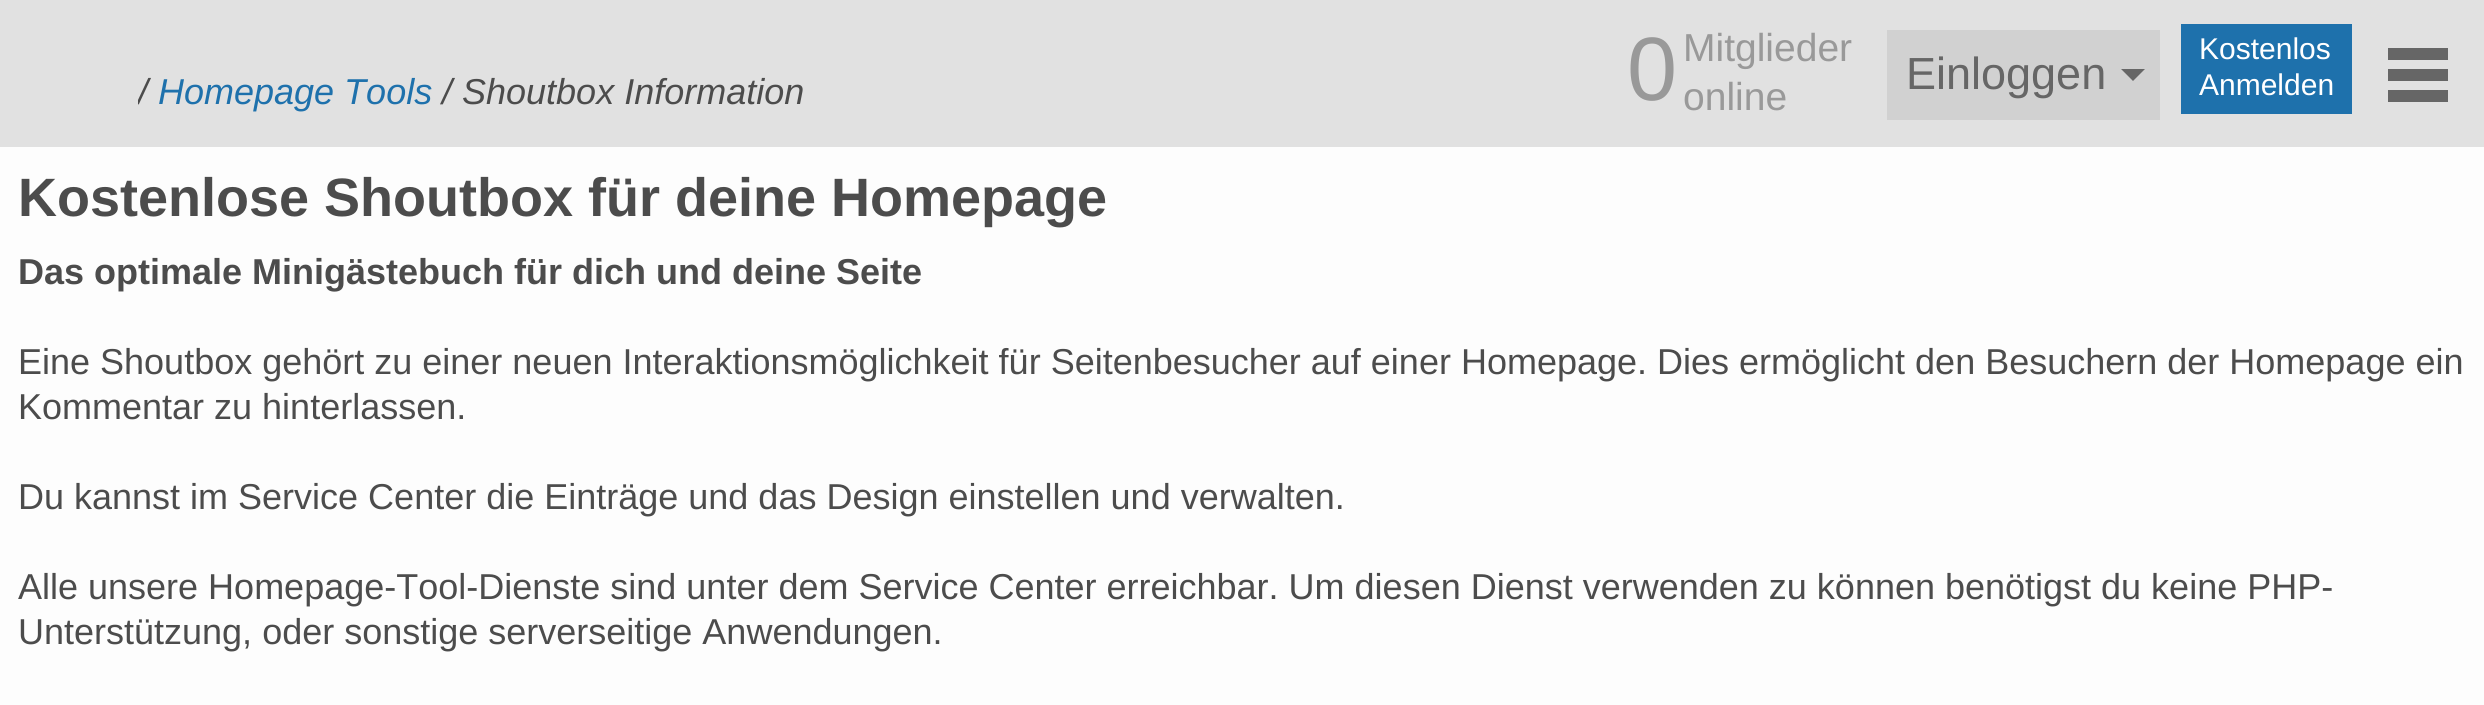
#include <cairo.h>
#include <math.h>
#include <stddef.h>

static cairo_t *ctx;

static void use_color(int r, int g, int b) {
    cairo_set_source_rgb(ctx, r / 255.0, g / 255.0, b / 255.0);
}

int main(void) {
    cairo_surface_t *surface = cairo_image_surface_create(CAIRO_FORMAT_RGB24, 2484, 705);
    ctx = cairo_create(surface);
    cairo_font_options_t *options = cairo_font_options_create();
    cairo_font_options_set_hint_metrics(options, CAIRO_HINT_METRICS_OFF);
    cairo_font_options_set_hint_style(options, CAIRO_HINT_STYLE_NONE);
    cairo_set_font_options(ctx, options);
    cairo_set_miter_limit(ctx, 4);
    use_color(225, 225, 225);
    cairo_paint(ctx);
    cairo_save(ctx);
    cairo_rectangle(ctx, 138, 51, 1470, 66);
    cairo_clip(ctx);
    cairo_select_font_face(ctx, "Liberation Sans", CAIRO_FONT_SLANT_ITALIC, CAIRO_FONT_WEIGHT_NORMAL);
    cairo_set_font_size(ctx, 36);
    use_color(76, 76, 76);
    cairo_move_to(ctx, 138, 104);
    cairo_show_text(ctx, "/");
    cairo_restore(ctx);
    cairo_select_font_face(ctx, "Liberation Sans", CAIRO_FONT_SLANT_ITALIC, CAIRO_FONT_WEIGHT_NORMAL);
    cairo_set_font_size(ctx, 36);
    use_color(30, 113, 172);
    cairo_move_to(ctx, 158, 104);
    cairo_show_text(ctx, "Homepage Tools");
    use_color(76, 76, 76);
    cairo_move_to(ctx, 442, 104);
    cairo_show_text(ctx, "/ Shoutbox Information");
    cairo_select_font_face(ctx, "Liberation Sans", CAIRO_FONT_SLANT_NORMAL, CAIRO_FONT_WEIGHT_NORMAL);
    cairo_set_font_size(ctx, 90);
    use_color(153, 153, 153);
    cairo_move_to(ctx, 1627, 100);
    cairo_show_text(ctx, "0");
    cairo_set_font_size(ctx, 39);
    cairo_move_to(ctx, 1683, 61);
    cairo_show_text(ctx, "Mitglieder");
    cairo_move_to(ctx, 1683, 110);
    cairo_show_text(ctx, "online");
    use_color(209, 209, 209);
    cairo_rectangle(ctx, 1887, 30, 273, 90);
    cairo_fill(ctx);
    cairo_set_font_size(ctx, 45);
    use_color(102, 102, 102);
    cairo_move_to(ctx, 1906, 89);
    cairo_show_text(ctx, "Einloggen");
    cairo_new_path(ctx);
    cairo_move_to(ctx, 2121, 69);
    cairo_line_to(ctx, 2145, 69);
    cairo_line_to(ctx, 2133, 81);
    cairo_close_path(ctx);
    cairo_fill(ctx);
    use_color(30, 113, 172);
    cairo_rectangle(ctx, 2181, 24, 171, 90);
    cairo_fill(ctx);
    cairo_set_font_size(ctx, 30);
    use_color(255, 255, 255);
    cairo_move_to(ctx, 2199, 59);
    cairo_show_text(ctx, "Kostenlos");
    cairo_move_to(ctx, 2199, 95);
    cairo_show_text(ctx, "Anmelden");
    use_color(102, 102, 102);
    cairo_rectangle(ctx, 2388, 48, 60, 12);
    cairo_fill(ctx);
    cairo_rectangle(ctx, 2388, 69, 60, 12);
    cairo_fill(ctx);
    cairo_rectangle(ctx, 2388, 90, 60, 12);
    cairo_fill(ctx);
    use_color(253, 253, 253);
    cairo_rectangle(ctx, 0, 147, 2484, 558);
    cairo_fill(ctx);
    cairo_select_font_face(ctx, "Liberation Sans", CAIRO_FONT_SLANT_NORMAL, CAIRO_FONT_WEIGHT_BOLD);
    cairo_set_font_size(ctx, 54);
    use_color(76, 76, 76);
    cairo_move_to(ctx, 18, 216);
    cairo_show_text(ctx, "Kostenlose Shoutbox für deine Homepage");
    cairo_set_font_size(ctx, 36);
    cairo_move_to(ctx, 18, 284);
    cairo_show_text(ctx, "Das optimale Minigästebuch für dich und deine Seite");
    cairo_select_font_face(ctx, "Liberation Sans", CAIRO_FONT_SLANT_NORMAL, CAIRO_FONT_WEIGHT_NORMAL);
    cairo_move_to(ctx, 18, 374);
    cairo_show_text(ctx, "Eine Shoutbox gehört zu einer neuen Interaktionsmöglichkeit für Seitenbesucher auf einer Homepage. Dies ermöglicht den Besuchern der Homepage ein");
    cairo_move_to(ctx, 18, 419);
    cairo_show_text(ctx, "Kommentar zu hinterlassen.");
    cairo_move_to(ctx, 18, 509);
    cairo_show_text(ctx, "Du kannst im Service Center die Einträge und das Design einstellen und verwalten.");
    cairo_move_to(ctx, 18, 599);
    cairo_show_text(ctx, "Alle unsere Homepage-Tool-Dienste sind unter dem Service Center erreichbar. Um diesen Dienst verwenden zu können benötigst du keine PHP-");
    cairo_move_to(ctx, 18, 644);
    cairo_show_text(ctx, "Unterstützung, oder sonstige serverseitige Anwendungen.");
    cairo_surface_write_to_png(surface, "result.png");
    cairo_font_options_destroy(options);
    cairo_destroy(ctx);
    cairo_surface_destroy(surface);
    return 0;
}
